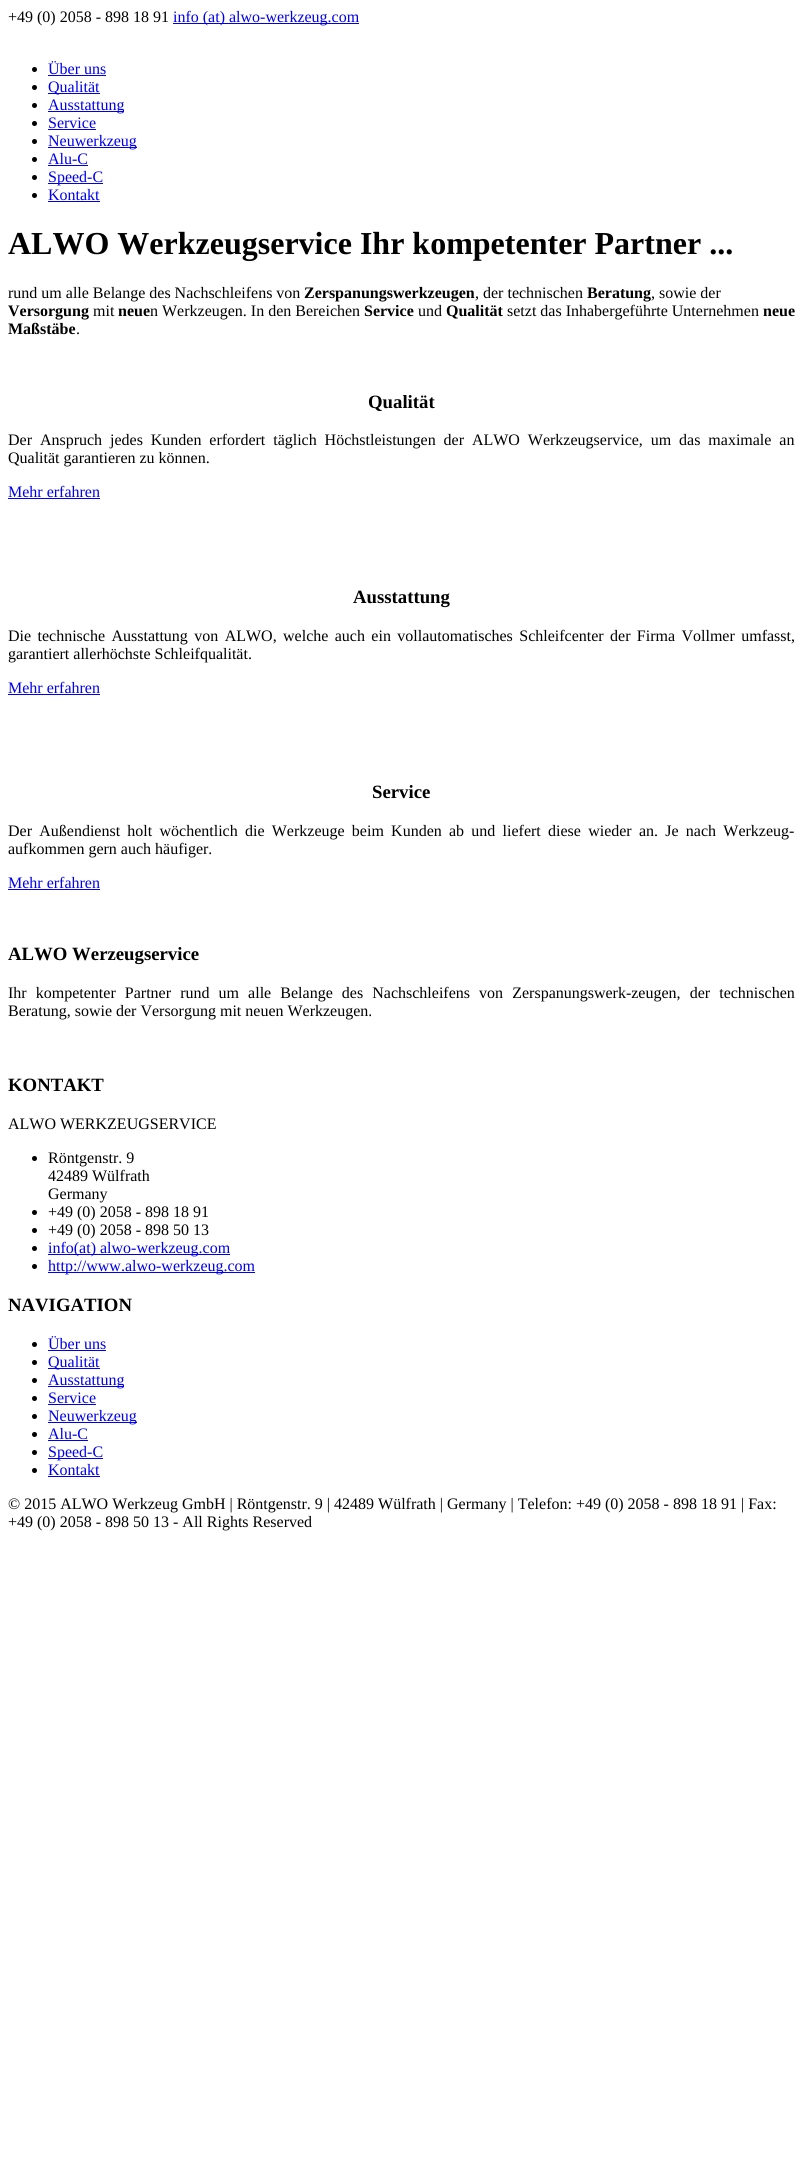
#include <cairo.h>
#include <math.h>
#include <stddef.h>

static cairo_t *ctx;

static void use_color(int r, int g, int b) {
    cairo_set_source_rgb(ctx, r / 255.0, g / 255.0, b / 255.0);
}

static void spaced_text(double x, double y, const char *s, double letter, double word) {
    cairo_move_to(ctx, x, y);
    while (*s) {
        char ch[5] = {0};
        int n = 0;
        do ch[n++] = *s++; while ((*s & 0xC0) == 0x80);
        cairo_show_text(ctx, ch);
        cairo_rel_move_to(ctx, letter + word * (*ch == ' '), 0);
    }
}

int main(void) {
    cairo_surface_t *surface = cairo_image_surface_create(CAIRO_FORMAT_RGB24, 803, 2178);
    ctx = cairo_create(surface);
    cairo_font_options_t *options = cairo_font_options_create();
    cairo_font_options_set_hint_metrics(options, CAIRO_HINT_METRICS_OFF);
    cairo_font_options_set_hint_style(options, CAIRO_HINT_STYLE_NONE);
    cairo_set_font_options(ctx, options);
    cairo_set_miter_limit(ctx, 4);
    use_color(255, 255, 255);
    cairo_paint(ctx);
    cairo_select_font_face(ctx, "Liberation Serif", CAIRO_FONT_SLANT_NORMAL, CAIRO_FONT_WEIGHT_NORMAL);
    cairo_set_font_size(ctx, 16);
    use_color(0, 0, 0);
    cairo_move_to(ctx, 8, 22);
    cairo_show_text(ctx, "+49 (0) 2058 - 898 18 91");
    use_color(0, 0, 238);
    cairo_rectangle(ctx, 173, 23, 186, 1);
    cairo_fill(ctx);
    cairo_move_to(ctx, 173, 22);
    cairo_show_text(ctx, "info (at) alwo-werkzeug.com");
    use_color(0, 0, 0);
    cairo_new_path(ctx);
    cairo_arc(ctx, 34.5, 69.5, 2.5, 0, 2 * M_PI);
    cairo_fill(ctx);
    use_color(0, 0, 238);
    cairo_move_to(ctx, 48, 74);
    cairo_show_text(ctx, "Über uns");
    cairo_rectangle(ctx, 48, 75, 58, 1);
    cairo_fill(ctx);
    use_color(0, 0, 0);
    cairo_arc(ctx, 34.5, 87.5, 2.5, 0, 2 * M_PI);
    cairo_fill(ctx);
    use_color(0, 0, 238);
    cairo_rectangle(ctx, 48, 93, 52, 1);
    cairo_fill(ctx);
    cairo_move_to(ctx, 48, 92);
    cairo_show_text(ctx, "Qualität");
    use_color(0, 0, 0);
    cairo_new_path(ctx);
    cairo_arc(ctx, 34.5, 105.5, 2.5, 0, 2 * M_PI);
    cairo_fill(ctx);
    use_color(0, 0, 238);
    cairo_rectangle(ctx, 48, 111, 76, 1);
    cairo_fill(ctx);
    cairo_move_to(ctx, 48, 110);
    cairo_show_text(ctx, "Ausstattung");
    use_color(0, 0, 0);
    cairo_new_path(ctx);
    cairo_arc(ctx, 34.5, 123.5, 2.5, 0, 2 * M_PI);
    cairo_fill(ctx);
    use_color(0, 0, 238);
    cairo_move_to(ctx, 48, 128);
    cairo_show_text(ctx, "Service");
    cairo_rectangle(ctx, 48, 129, 48, 1);
    cairo_fill(ctx);
    use_color(0, 0, 0);
    cairo_arc(ctx, 34.5, 141.5, 2.5, 0, 2 * M_PI);
    cairo_fill(ctx);
    use_color(0, 0, 238);
    cairo_rectangle(ctx, 48, 147, 89, 1);
    cairo_fill(ctx);
    cairo_move_to(ctx, 48, 146);
    cairo_show_text(ctx, "Neuwerkzeug");
    use_color(0, 0, 0);
    cairo_new_path(ctx);
    cairo_arc(ctx, 34.5, 159.5, 2.5, 0, 2 * M_PI);
    cairo_fill(ctx);
    use_color(0, 0, 238);
    cairo_move_to(ctx, 48, 164);
    cairo_show_text(ctx, "Alu-C");
    cairo_rectangle(ctx, 48, 165, 40, 1);
    cairo_fill(ctx);
    use_color(0, 0, 0);
    cairo_arc(ctx, 34.5, 177.5, 2.5, 0, 2 * M_PI);
    cairo_fill(ctx);
    use_color(0, 0, 238);
    cairo_rectangle(ctx, 48, 183, 55, 1);
    cairo_fill(ctx);
    cairo_move_to(ctx, 48, 182);
    cairo_show_text(ctx, "Speed-C");
    use_color(0, 0, 0);
    cairo_new_path(ctx);
    cairo_arc(ctx, 34.5, 195.5, 2.5, 0, 2 * M_PI);
    cairo_fill(ctx);
    use_color(0, 0, 238);
    cairo_move_to(ctx, 48, 200);
    cairo_show_text(ctx, "Kontakt");
    cairo_rectangle(ctx, 48, 201, 52, 1);
    cairo_fill(ctx);
    cairo_select_font_face(ctx, "Liberation Serif", CAIRO_FONT_SLANT_NORMAL, CAIRO_FONT_WEIGHT_BOLD);
    cairo_set_font_size(ctx, 32);
    use_color(0, 0, 0);
    cairo_move_to(ctx, 8, 254);
    cairo_show_text(ctx, "ALWO Werkzeugservice Ihr kompetenter Partner ...");
    cairo_select_font_face(ctx, "Liberation Serif", CAIRO_FONT_SLANT_NORMAL, CAIRO_FONT_WEIGHT_NORMAL);
    cairo_set_font_size(ctx, 16);
    cairo_move_to(ctx, 8, 298);
    cairo_show_text(ctx, "rund um alle Belange des Nachschleifens von");
    cairo_select_font_face(ctx, "Liberation Serif", CAIRO_FONT_SLANT_NORMAL, CAIRO_FONT_WEIGHT_BOLD);
    cairo_move_to(ctx, 304, 298);
    cairo_show_text(ctx, "Zerspanungswerkzeugen");
    cairo_select_font_face(ctx, "Liberation Serif", CAIRO_FONT_SLANT_NORMAL, CAIRO_FONT_WEIGHT_NORMAL);
    cairo_move_to(ctx, 475, 298);
    cairo_show_text(ctx, ", der technischen");
    cairo_select_font_face(ctx, "Liberation Serif", CAIRO_FONT_SLANT_NORMAL, CAIRO_FONT_WEIGHT_BOLD);
    cairo_move_to(ctx, 587, 298);
    cairo_show_text(ctx, "Beratung");
    cairo_select_font_face(ctx, "Liberation Serif", CAIRO_FONT_SLANT_NORMAL, CAIRO_FONT_WEIGHT_NORMAL);
    cairo_move_to(ctx, 651, 298);
    cairo_show_text(ctx, ", sowie der");
    cairo_select_font_face(ctx, "Liberation Serif", CAIRO_FONT_SLANT_NORMAL, CAIRO_FONT_WEIGHT_BOLD);
    cairo_move_to(ctx, 8, 316);
    cairo_show_text(ctx, "Versorgung");
    cairo_select_font_face(ctx, "Liberation Serif", CAIRO_FONT_SLANT_NORMAL, CAIRO_FONT_WEIGHT_NORMAL);
    cairo_move_to(ctx, 93, 316);
    cairo_show_text(ctx, "mit");
    cairo_select_font_face(ctx, "Liberation Serif", CAIRO_FONT_SLANT_NORMAL, CAIRO_FONT_WEIGHT_BOLD);
    cairo_move_to(ctx, 118, 316);
    cairo_show_text(ctx, "neue");
    cairo_select_font_face(ctx, "Liberation Serif", CAIRO_FONT_SLANT_NORMAL, CAIRO_FONT_WEIGHT_NORMAL);
    cairo_move_to(ctx, 150, 316);
    cairo_show_text(ctx, "n Werkzeugen. In den Bereichen");
    cairo_select_font_face(ctx, "Liberation Serif", CAIRO_FONT_SLANT_NORMAL, CAIRO_FONT_WEIGHT_BOLD);
    cairo_move_to(ctx, 364, 316);
    cairo_show_text(ctx, "Service");
    cairo_select_font_face(ctx, "Liberation Serif", CAIRO_FONT_SLANT_NORMAL, CAIRO_FONT_WEIGHT_NORMAL);
    cairo_move_to(ctx, 418, 316);
    cairo_show_text(ctx, "und");
    cairo_select_font_face(ctx, "Liberation Serif", CAIRO_FONT_SLANT_NORMAL, CAIRO_FONT_WEIGHT_BOLD);
    cairo_move_to(ctx, 446, 316);
    cairo_show_text(ctx, "Qualität");
    cairo_select_font_face(ctx, "Liberation Serif", CAIRO_FONT_SLANT_NORMAL, CAIRO_FONT_WEIGHT_NORMAL);
    cairo_move_to(ctx, 507, 316);
    cairo_show_text(ctx, "setzt das Inhabergeführte Unternehmen");
    cairo_select_font_face(ctx, "Liberation Serif", CAIRO_FONT_SLANT_NORMAL, CAIRO_FONT_WEIGHT_BOLD);
    cairo_move_to(ctx, 763, 316);
    cairo_show_text(ctx, "neue");
    cairo_move_to(ctx, 8, 334);
    cairo_show_text(ctx, "Maßstäbe");
    cairo_select_font_face(ctx, "Liberation Serif", CAIRO_FONT_SLANT_NORMAL, CAIRO_FONT_WEIGHT_NORMAL);
    cairo_move_to(ctx, 76, 334);
    cairo_show_text(ctx, ".");
    cairo_select_font_face(ctx, "Liberation Serif", CAIRO_FONT_SLANT_NORMAL, CAIRO_FONT_WEIGHT_BOLD);
    cairo_set_font_size(ctx, 18.75);
    cairo_move_to(ctx, 368, 408);
    cairo_show_text(ctx, "Qualität");
    cairo_select_font_face(ctx, "Liberation Serif", CAIRO_FONT_SLANT_NORMAL, CAIRO_FONT_WEIGHT_NORMAL);
    cairo_set_font_size(ctx, 16);
    spaced_text(8, 445, "Der Anspruch jedes Kunden erfordert täglich Höchstleistungen der ALWO Werkzeugservice, um das maximale an", 0, 3.9);
    cairo_move_to(ctx, 8, 463);
    cairo_show_text(ctx, "Qualität garantieren zu können.");
    use_color(0, 0, 238);
    cairo_move_to(ctx, 8, 497);
    cairo_show_text(ctx, "Mehr erfahren");
    cairo_rectangle(ctx, 8, 498, 92, 1);
    cairo_fill(ctx);
    cairo_select_font_face(ctx, "Liberation Serif", CAIRO_FONT_SLANT_NORMAL, CAIRO_FONT_WEIGHT_BOLD);
    cairo_set_font_size(ctx, 18.75);
    use_color(0, 0, 0);
    cairo_move_to(ctx, 353, 603);
    cairo_show_text(ctx, "Ausstattung");
    cairo_select_font_face(ctx, "Liberation Serif", CAIRO_FONT_SLANT_NORMAL, CAIRO_FONT_WEIGHT_NORMAL);
    cairo_set_font_size(ctx, 16);
    spaced_text(8, 641, "Die technische Ausstattung von ALWO, welche auch ein vollautomatisches Schleifcenter der Firma Vollmer umfasst,", 0, 2.4);
    cairo_move_to(ctx, 8, 659);
    cairo_show_text(ctx, "garantiert allerhöchste Schleifqualität.");
    use_color(0, 0, 238);
    cairo_move_to(ctx, 8, 693);
    cairo_show_text(ctx, "Mehr erfahren");
    cairo_rectangle(ctx, 8, 694, 92, 1);
    cairo_fill(ctx);
    cairo_select_font_face(ctx, "Liberation Serif", CAIRO_FONT_SLANT_NORMAL, CAIRO_FONT_WEIGHT_BOLD);
    cairo_set_font_size(ctx, 18.75);
    use_color(0, 0, 0);
    cairo_move_to(ctx, 372, 798);
    cairo_show_text(ctx, "Service");
    cairo_select_font_face(ctx, "Liberation Serif", CAIRO_FONT_SLANT_NORMAL, CAIRO_FONT_WEIGHT_NORMAL);
    cairo_set_font_size(ctx, 16);
    spaced_text(8, 836, "Der Außendienst holt wöchentlich die Werkzeuge beim Kunden ab und liefert diese wieder an. Je nach Werkzeug-", 0, 3.25);
    cairo_move_to(ctx, 8, 854);
    cairo_show_text(ctx, "aufkommen gern auch häufiger.");
    use_color(0, 0, 238);
    cairo_move_to(ctx, 8, 888);
    cairo_show_text(ctx, "Mehr erfahren");
    cairo_rectangle(ctx, 8, 889, 92, 1);
    cairo_fill(ctx);
    cairo_select_font_face(ctx, "Liberation Serif", CAIRO_FONT_SLANT_NORMAL, CAIRO_FONT_WEIGHT_BOLD);
    cairo_set_font_size(ctx, 18.75);
    use_color(0, 0, 0);
    cairo_move_to(ctx, 8, 960);
    cairo_show_text(ctx, "ALWO Werzeugservice");
    cairo_select_font_face(ctx, "Liberation Serif", CAIRO_FONT_SLANT_NORMAL, CAIRO_FONT_WEIGHT_NORMAL);
    cairo_set_font_size(ctx, 16);
    spaced_text(8, 998, "Ihr kompetenter Partner rund um alle Belange des Nachschleifens von Zerspanungswerk-zeugen, der technischen", 0, 5.1);
    cairo_move_to(ctx, 8, 1016);
    cairo_show_text(ctx, "Beratung, sowie der Versorgung mit neuen Werkzeugen.");
    cairo_select_font_face(ctx, "Liberation Serif", CAIRO_FONT_SLANT_NORMAL, CAIRO_FONT_WEIGHT_BOLD);
    cairo_set_font_size(ctx, 18.75);
    cairo_move_to(ctx, 8, 1091);
    cairo_show_text(ctx, "KONTAKT");
    cairo_select_font_face(ctx, "Liberation Serif", CAIRO_FONT_SLANT_NORMAL, CAIRO_FONT_WEIGHT_NORMAL);
    cairo_set_font_size(ctx, 16);
    cairo_move_to(ctx, 8, 1129);
    cairo_show_text(ctx, "ALWO WERKZEUGSERVICE");
    cairo_new_path(ctx);
    cairo_arc(ctx, 34.5, 1158.5, 2.5, 0, 2 * M_PI);
    cairo_fill(ctx);
    cairo_move_to(ctx, 48, 1163);
    cairo_show_text(ctx, "Röntgenstr. 9");
    cairo_move_to(ctx, 48, 1181);
    cairo_show_text(ctx, "42489 Wülfrath");
    cairo_move_to(ctx, 48, 1199);
    cairo_show_text(ctx, "Germany");
    cairo_new_path(ctx);
    cairo_arc(ctx, 34.5, 1212.5, 2.5, 0, 2 * M_PI);
    cairo_fill(ctx);
    cairo_move_to(ctx, 48, 1217);
    cairo_show_text(ctx, "+49 (0) 2058 - 898 18 91");
    cairo_new_path(ctx);
    cairo_arc(ctx, 34.5, 1230.5, 2.5, 0, 2 * M_PI);
    cairo_fill(ctx);
    cairo_move_to(ctx, 48, 1235);
    cairo_show_text(ctx, "+49 (0) 2058 - 898 50 13");
    cairo_new_path(ctx);
    cairo_arc(ctx, 34.5, 1248.5, 2.5, 0, 2 * M_PI);
    cairo_fill(ctx);
    use_color(0, 0, 238);
    cairo_rectangle(ctx, 48, 1254, 182, 1);
    cairo_fill(ctx);
    cairo_move_to(ctx, 48, 1253);
    cairo_show_text(ctx, "info(at) alwo-werkzeug.com");
    use_color(0, 0, 0);
    cairo_new_path(ctx);
    cairo_arc(ctx, 34.5, 1266.5, 2.5, 0, 2 * M_PI);
    cairo_fill(ctx);
    use_color(0, 0, 238);
    cairo_rectangle(ctx, 48, 1272, 207, 1);
    cairo_fill(ctx);
    cairo_move_to(ctx, 48, 1271);
    cairo_show_text(ctx, "http://www.alwo-werkzeug.com");
    cairo_select_font_face(ctx, "Liberation Serif", CAIRO_FONT_SLANT_NORMAL, CAIRO_FONT_WEIGHT_BOLD);
    cairo_set_font_size(ctx, 18.75);
    use_color(0, 0, 0);
    cairo_move_to(ctx, 8, 1311);
    cairo_show_text(ctx, "NAVIGATION");
    cairo_new_path(ctx);
    cairo_arc(ctx, 34.5, 1344.5, 2.5, 0, 2 * M_PI);
    cairo_fill(ctx);
    cairo_select_font_face(ctx, "Liberation Serif", CAIRO_FONT_SLANT_NORMAL, CAIRO_FONT_WEIGHT_NORMAL);
    cairo_set_font_size(ctx, 16);
    use_color(0, 0, 238);
    cairo_move_to(ctx, 48, 1349);
    cairo_show_text(ctx, "Über uns");
    cairo_rectangle(ctx, 48, 1350, 58, 1);
    cairo_fill(ctx);
    use_color(0, 0, 0);
    cairo_arc(ctx, 34.5, 1362.5, 2.5, 0, 2 * M_PI);
    cairo_fill(ctx);
    use_color(0, 0, 238);
    cairo_rectangle(ctx, 48, 1368, 52, 1);
    cairo_fill(ctx);
    cairo_move_to(ctx, 48, 1367);
    cairo_show_text(ctx, "Qualität");
    use_color(0, 0, 0);
    cairo_new_path(ctx);
    cairo_arc(ctx, 34.5, 1380.5, 2.5, 0, 2 * M_PI);
    cairo_fill(ctx);
    use_color(0, 0, 238);
    cairo_rectangle(ctx, 48, 1386, 76, 1);
    cairo_fill(ctx);
    cairo_move_to(ctx, 48, 1385);
    cairo_show_text(ctx, "Ausstattung");
    use_color(0, 0, 0);
    cairo_new_path(ctx);
    cairo_arc(ctx, 34.5, 1398.5, 2.5, 0, 2 * M_PI);
    cairo_fill(ctx);
    use_color(0, 0, 238);
    cairo_move_to(ctx, 48, 1403);
    cairo_show_text(ctx, "Service");
    cairo_rectangle(ctx, 48, 1404, 48, 1);
    cairo_fill(ctx);
    use_color(0, 0, 0);
    cairo_arc(ctx, 34.5, 1416.5, 2.5, 0, 2 * M_PI);
    cairo_fill(ctx);
    use_color(0, 0, 238);
    cairo_rectangle(ctx, 48, 1422, 89, 1);
    cairo_fill(ctx);
    cairo_move_to(ctx, 48, 1421);
    cairo_show_text(ctx, "Neuwerkzeug");
    use_color(0, 0, 0);
    cairo_new_path(ctx);
    cairo_arc(ctx, 34.5, 1434.5, 2.5, 0, 2 * M_PI);
    cairo_fill(ctx);
    use_color(0, 0, 238);
    cairo_move_to(ctx, 48, 1439);
    cairo_show_text(ctx, "Alu-C");
    cairo_rectangle(ctx, 48, 1440, 40, 1);
    cairo_fill(ctx);
    use_color(0, 0, 0);
    cairo_arc(ctx, 34.5, 1452.5, 2.5, 0, 2 * M_PI);
    cairo_fill(ctx);
    use_color(0, 0, 238);
    cairo_rectangle(ctx, 48, 1458, 55, 1);
    cairo_fill(ctx);
    cairo_move_to(ctx, 48, 1457);
    cairo_show_text(ctx, "Speed-C");
    use_color(0, 0, 0);
    cairo_new_path(ctx);
    cairo_arc(ctx, 34.5, 1470.5, 2.5, 0, 2 * M_PI);
    cairo_fill(ctx);
    use_color(0, 0, 238);
    cairo_move_to(ctx, 48, 1475);
    cairo_show_text(ctx, "Kontakt");
    cairo_rectangle(ctx, 48, 1476, 52, 1);
    cairo_fill(ctx);
    use_color(0, 0, 0);
    cairo_move_to(ctx, 8, 1509);
    cairo_show_text(ctx, "© 2015 ALWO Werkzeug GmbH | Röntgenstr. 9 | 42489 Wülfrath | Germany | Telefon: +49 (0) 2058 - 898 18 91 | Fax:");
    cairo_move_to(ctx, 8, 1527);
    cairo_show_text(ctx, "+49 (0) 2058 - 898 50 13 - All Rights Reserved");
    cairo_surface_write_to_png(surface, "result.png");
    cairo_font_options_destroy(options);
    cairo_destroy(ctx);
    cairo_surface_destroy(surface);
    return 0;
}
